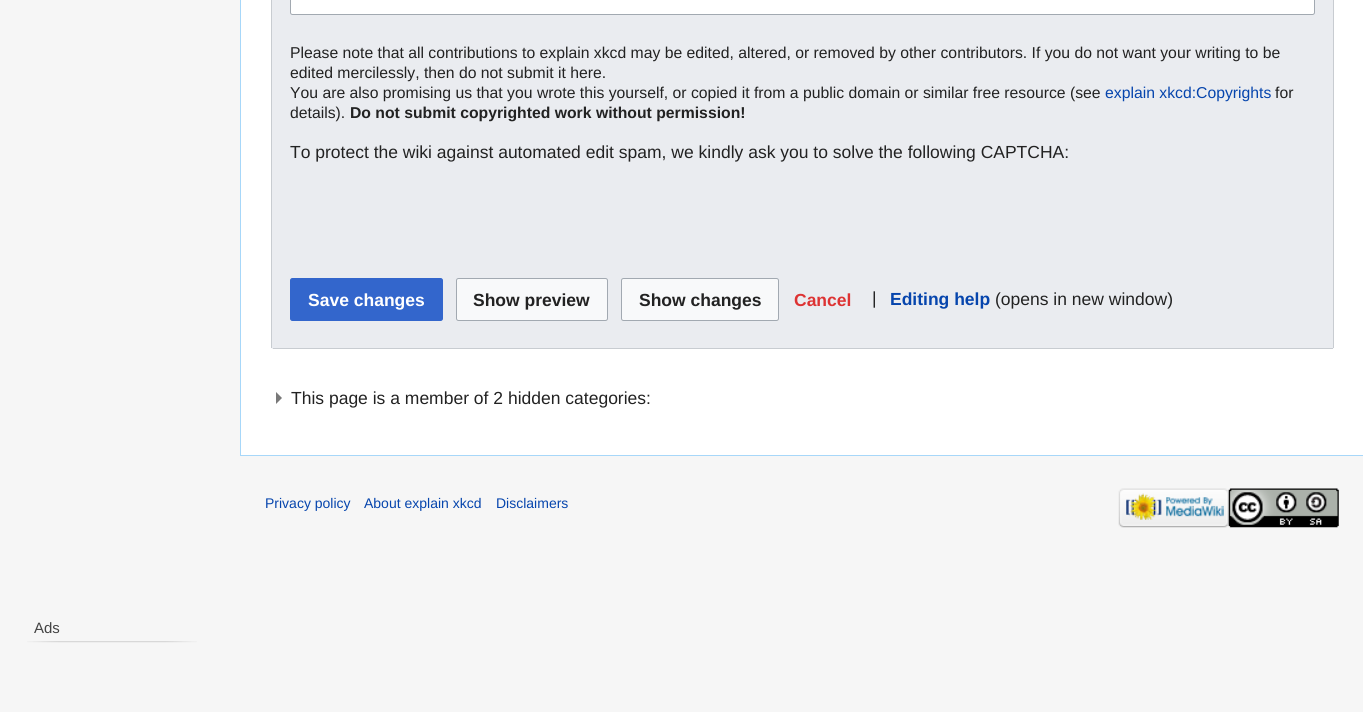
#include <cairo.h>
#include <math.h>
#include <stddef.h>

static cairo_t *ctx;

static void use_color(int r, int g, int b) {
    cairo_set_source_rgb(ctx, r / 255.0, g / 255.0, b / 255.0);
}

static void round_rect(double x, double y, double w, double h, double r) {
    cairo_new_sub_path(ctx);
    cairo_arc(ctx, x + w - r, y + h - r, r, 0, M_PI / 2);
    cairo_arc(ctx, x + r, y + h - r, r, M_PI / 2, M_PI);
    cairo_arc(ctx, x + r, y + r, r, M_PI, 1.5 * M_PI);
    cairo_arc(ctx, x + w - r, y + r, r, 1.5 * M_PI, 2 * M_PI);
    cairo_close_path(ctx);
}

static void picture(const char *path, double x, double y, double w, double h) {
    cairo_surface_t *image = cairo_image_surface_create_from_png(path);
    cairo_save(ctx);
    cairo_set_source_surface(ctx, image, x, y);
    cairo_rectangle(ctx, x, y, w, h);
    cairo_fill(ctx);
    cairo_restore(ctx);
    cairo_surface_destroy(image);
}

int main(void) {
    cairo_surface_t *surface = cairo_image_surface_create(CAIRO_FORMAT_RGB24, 1363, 712);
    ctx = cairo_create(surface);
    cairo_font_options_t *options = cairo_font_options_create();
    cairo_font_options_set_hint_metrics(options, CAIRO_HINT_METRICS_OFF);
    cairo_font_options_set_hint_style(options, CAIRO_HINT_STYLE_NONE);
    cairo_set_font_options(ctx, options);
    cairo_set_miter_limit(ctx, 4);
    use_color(246, 246, 246);
    cairo_paint(ctx);
    use_color(255, 255, 255);
    cairo_rectangle(ctx, 241, 0, 1122, 455);
    cairo_fill(ctx);
    use_color(167, 215, 249);
    cairo_rectangle(ctx, 240, 455, 1123, 1);
    cairo_fill(ctx);
    cairo_rectangle(ctx, 240, 0, 1, 456);
    cairo_fill(ctx);
    use_color(234, 236, 240);
    cairo_new_path(ctx);
    cairo_move_to(ctx, 271, -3);
    cairo_line_to(ctx, 1334, -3);
    cairo_line_to(ctx, 1334, 346.5);
    cairo_curve_to(ctx, 1334, 348, 1333, 349, 1331.5, 349);
    cairo_line_to(ctx, 273.5, 349);
    cairo_curve_to(ctx, 272, 349, 271, 348, 271, 346.5);
    cairo_close_path(ctx);
    cairo_fill(ctx);
    use_color(200, 204, 209);
    cairo_rectangle(ctx, 1333, 0, 1, 348);
    cairo_fill(ctx);
    cairo_rectangle(ctx, 273, 348, 1060, 1);
    cairo_fill(ctx);
    cairo_rectangle(ctx, 271, 0, 1, 348);
    cairo_fill(ctx);
    use_color(255, 255, 255);
    round_rect(290.5, -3.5, 1024, 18, 2);
    cairo_fill_preserve(ctx);
    use_color(162, 169, 177);
    cairo_set_line_width(ctx, 1);
    cairo_stroke(ctx);
    cairo_select_font_face(ctx, "Liberation Sans", CAIRO_FONT_SLANT_NORMAL, CAIRO_FONT_WEIGHT_NORMAL);
    cairo_set_font_size(ctx, 15.75);
    use_color(34, 34, 34);
    cairo_move_to(ctx, 290, 58);
    cairo_show_text(ctx, "Please note that all contributions to explain xkcd may be edited, altered, or removed by other contributors. If you do not want your writing to be");
    cairo_move_to(ctx, 290, 78);
    cairo_show_text(ctx, "edited mercilessly, then do not submit it here.");
    cairo_move_to(ctx, 290, 98);
    cairo_show_text(ctx, "You are also promising us that you wrote this yourself, or copied it from a public domain or similar free resource (see");
    use_color(6, 69, 173);
    cairo_move_to(ctx, 1105, 98);
    cairo_show_text(ctx, "explain xkcd:Copyrights");
    use_color(34, 34, 34);
    cairo_move_to(ctx, 1275, 98);
    cairo_show_text(ctx, "for");
    cairo_move_to(ctx, 290, 118);
    cairo_show_text(ctx, "details).");
    cairo_select_font_face(ctx, "Liberation Sans", CAIRO_FONT_SLANT_NORMAL, CAIRO_FONT_WEIGHT_BOLD);
    cairo_move_to(ctx, 350, 118);
    cairo_show_text(ctx, "Do not submit copyrighted work without permission!");
    cairo_select_font_face(ctx, "Liberation Sans", CAIRO_FONT_SLANT_NORMAL, CAIRO_FONT_WEIGHT_NORMAL);
    cairo_set_font_size(ctx, 17.5);
    cairo_move_to(ctx, 290, 158);
    cairo_show_text(ctx, "To protect the wiki against automated edit spam, we kindly ask you to solve the following CAPTCHA:");
    use_color(51, 102, 204);
    round_rect(290.5, 278.5, 152, 42, 2);
    cairo_fill_preserve(ctx);
    cairo_stroke(ctx);
    cairo_select_font_face(ctx, "Liberation Sans", CAIRO_FONT_SLANT_NORMAL, CAIRO_FONT_WEIGHT_BOLD);
    use_color(255, 255, 255);
    cairo_move_to(ctx, 308, 306);
    cairo_show_text(ctx, "Save changes");
    use_color(248, 249, 250);
    round_rect(456.5, 278.5, 151, 42, 2);
    cairo_fill_preserve(ctx);
    use_color(162, 169, 177);
    cairo_stroke(ctx);
    use_color(34, 34, 34);
    cairo_move_to(ctx, 473, 306);
    cairo_show_text(ctx, "Show preview");
    use_color(248, 249, 250);
    round_rect(621.5, 278.5, 157, 42, 2);
    cairo_fill_preserve(ctx);
    use_color(162, 169, 177);
    cairo_stroke(ctx);
    use_color(34, 34, 34);
    cairo_move_to(ctx, 639, 306);
    cairo_show_text(ctx, "Show changes");
    use_color(221, 51, 51);
    cairo_move_to(ctx, 794, 306);
    cairo_show_text(ctx, "Cancel");
    cairo_select_font_face(ctx, "Liberation Sans", CAIRO_FONT_SLANT_NORMAL, CAIRO_FONT_WEIGHT_NORMAL);
    use_color(34, 34, 34);
    cairo_move_to(ctx, 872, 304);
    cairo_show_text(ctx, "|");
    cairo_select_font_face(ctx, "Liberation Sans", CAIRO_FONT_SLANT_NORMAL, CAIRO_FONT_WEIGHT_BOLD);
    use_color(6, 69, 173);
    cairo_move_to(ctx, 890, 305);
    cairo_show_text(ctx, "Editing help");
    cairo_select_font_face(ctx, "Liberation Sans", CAIRO_FONT_SLANT_NORMAL, CAIRO_FONT_WEIGHT_NORMAL);
    use_color(34, 34, 34);
    cairo_move_to(ctx, 995, 305);
    cairo_show_text(ctx, "(opens in new window)");
    use_color(121, 121, 121);
    cairo_new_path(ctx);
    cairo_move_to(ctx, 276, 392);
    cairo_line_to(ctx, 276, 404);
    cairo_line_to(ctx, 282, 398);
    cairo_close_path(ctx);
    cairo_fill(ctx);
    use_color(34, 34, 34);
    cairo_move_to(ctx, 291, 404);
    cairo_show_text(ctx, "This page is a member of 2 hidden categories:");
    cairo_set_font_size(ctx, 14);
    use_color(6, 69, 173);
    cairo_move_to(ctx, 265, 508);
    cairo_show_text(ctx, "Privacy policy");
    cairo_move_to(ctx, 364, 508);
    cairo_show_text(ctx, "About explain xkcd");
    cairo_move_to(ctx, 496, 508);
    cairo_show_text(ctx, "Disclaimers");
    picture("img1.png", 1118, 488, 111, 40);
    picture("img2.png", 1228, 488, 111, 40);
    cairo_set_font_size(ctx, 15);
    use_color(68, 68, 68);
    cairo_move_to(ctx, 34, 633);
    cairo_show_text(ctx, "Ads");
    picture("img3.png", 27, 641, 170, 2);
    cairo_surface_write_to_png(surface, "result.png");
    cairo_font_options_destroy(options);
    cairo_destroy(ctx);
    cairo_surface_destroy(surface);
    return 0;
}
